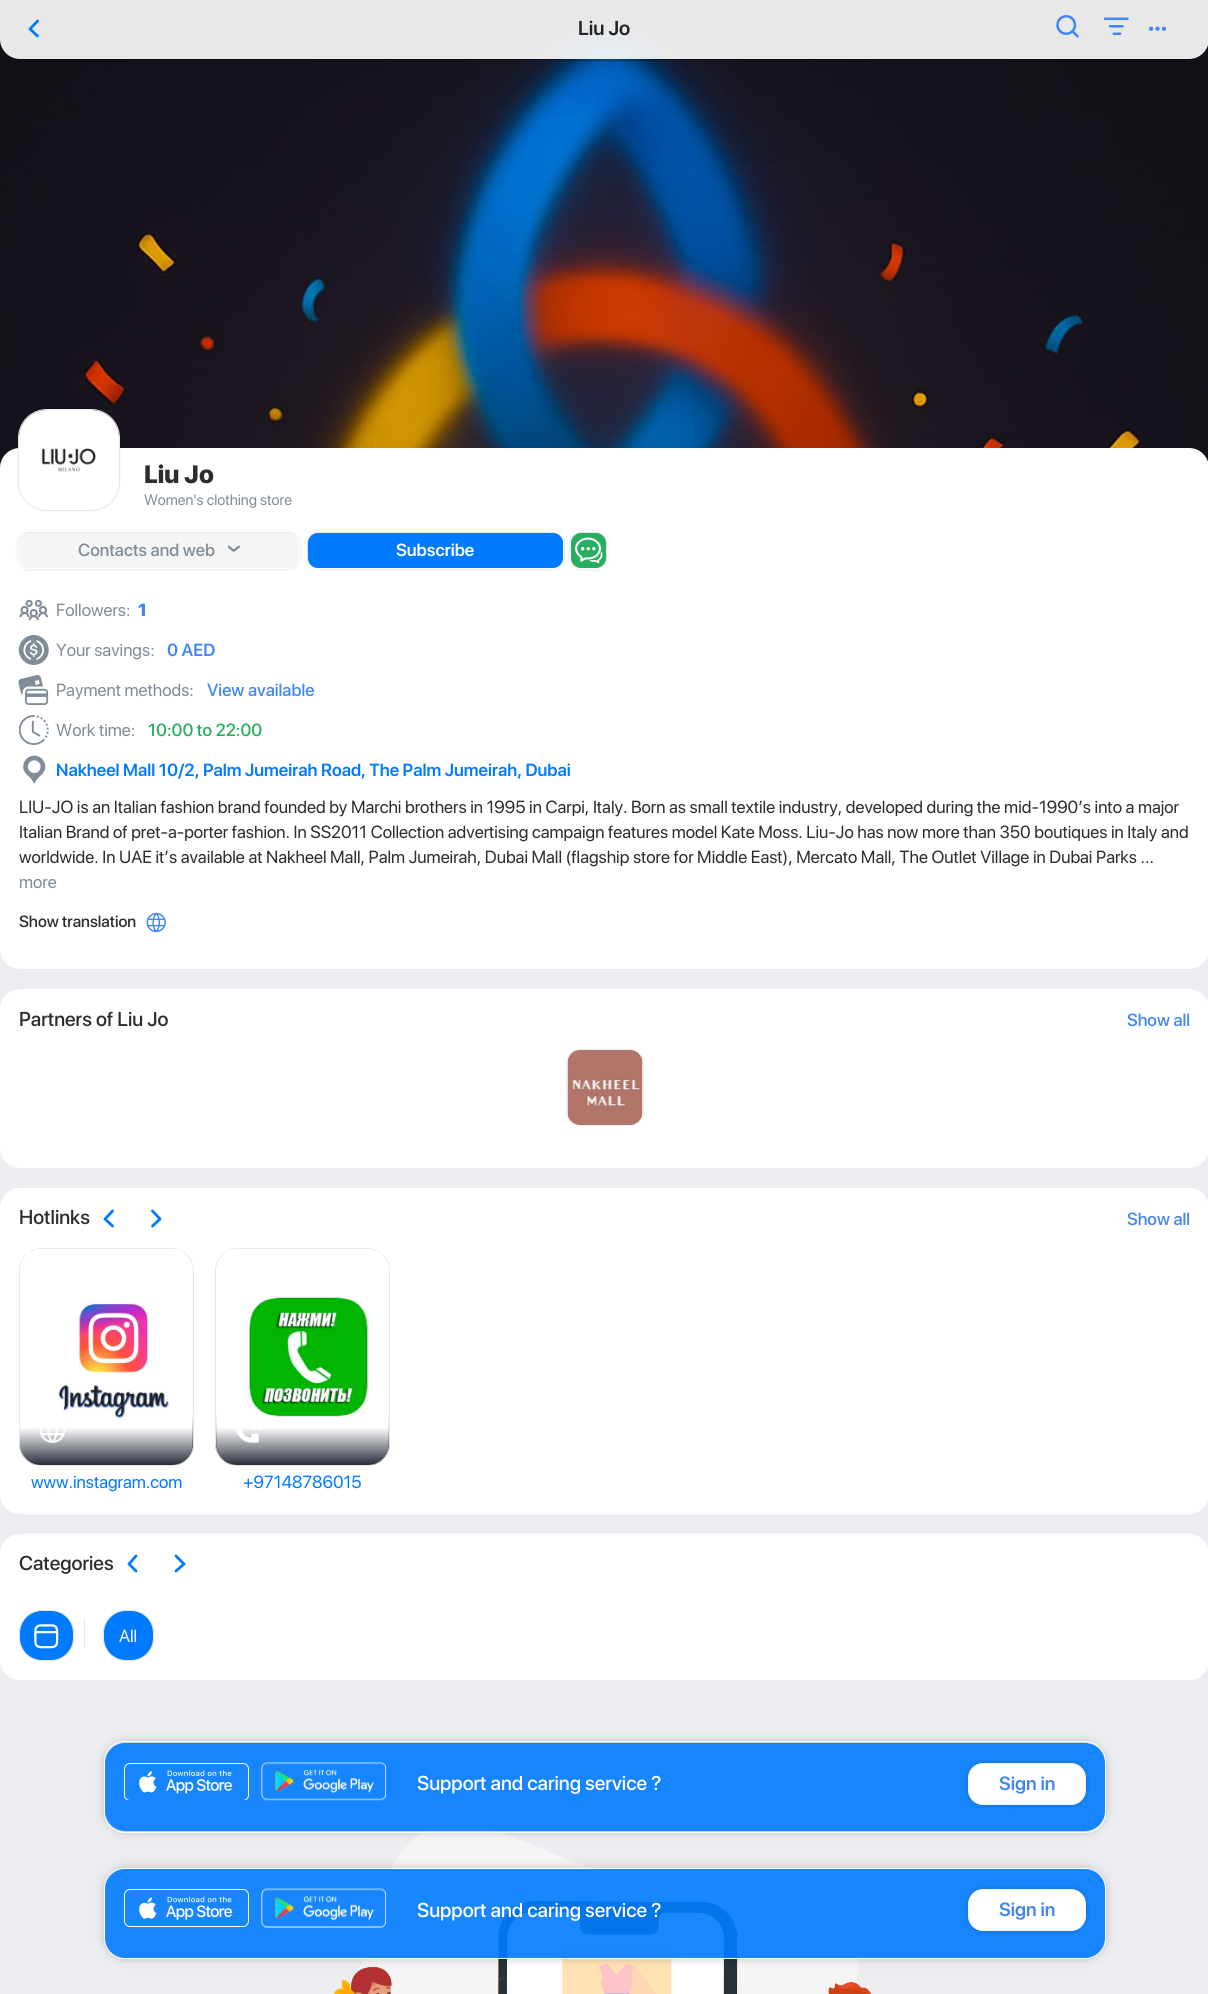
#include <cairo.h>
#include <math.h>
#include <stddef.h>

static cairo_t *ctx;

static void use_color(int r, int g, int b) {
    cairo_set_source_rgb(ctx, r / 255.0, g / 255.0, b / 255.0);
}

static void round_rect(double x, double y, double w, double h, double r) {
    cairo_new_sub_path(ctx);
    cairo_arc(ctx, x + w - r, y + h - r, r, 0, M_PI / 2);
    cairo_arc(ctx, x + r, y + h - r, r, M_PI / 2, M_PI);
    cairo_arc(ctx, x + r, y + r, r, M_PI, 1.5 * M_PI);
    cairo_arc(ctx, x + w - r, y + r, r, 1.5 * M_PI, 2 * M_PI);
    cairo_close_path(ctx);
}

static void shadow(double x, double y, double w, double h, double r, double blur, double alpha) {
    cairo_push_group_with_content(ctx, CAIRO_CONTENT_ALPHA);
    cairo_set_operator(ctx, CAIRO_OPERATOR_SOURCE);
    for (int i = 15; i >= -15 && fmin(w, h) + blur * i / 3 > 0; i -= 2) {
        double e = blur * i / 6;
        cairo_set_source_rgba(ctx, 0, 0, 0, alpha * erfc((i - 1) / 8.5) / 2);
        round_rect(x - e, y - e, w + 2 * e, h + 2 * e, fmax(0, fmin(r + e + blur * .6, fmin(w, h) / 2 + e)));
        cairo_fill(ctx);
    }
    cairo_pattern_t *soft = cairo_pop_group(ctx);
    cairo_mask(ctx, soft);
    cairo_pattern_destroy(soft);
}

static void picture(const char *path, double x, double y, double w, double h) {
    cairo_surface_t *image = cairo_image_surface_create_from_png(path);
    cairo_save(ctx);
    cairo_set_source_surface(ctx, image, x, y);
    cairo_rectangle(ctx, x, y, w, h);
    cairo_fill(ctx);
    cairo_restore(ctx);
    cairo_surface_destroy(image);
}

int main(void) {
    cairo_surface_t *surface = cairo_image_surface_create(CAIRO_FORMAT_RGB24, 1208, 1994);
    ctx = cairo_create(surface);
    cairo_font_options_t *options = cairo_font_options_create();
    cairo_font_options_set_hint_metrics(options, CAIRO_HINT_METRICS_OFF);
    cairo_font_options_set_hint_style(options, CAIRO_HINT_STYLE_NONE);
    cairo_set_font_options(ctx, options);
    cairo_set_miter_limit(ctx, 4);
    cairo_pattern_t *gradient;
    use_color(235, 237, 240);
    cairo_paint(ctx);
    picture("img1.png", 0, 0, 1208, 468);
    cairo_save(ctx);
    cairo_set_fill_rule(ctx, CAIRO_FILL_RULE_EVEN_ODD);
    cairo_new_path(ctx);
    cairo_move_to(ctx, 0, 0);
    cairo_line_to(ctx, 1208, 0);
    cairo_line_to(ctx, 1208, 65);
    cairo_line_to(ctx, 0, 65);
    cairo_close_path(ctx);
    cairo_move_to(ctx, 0, -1);
    cairo_line_to(ctx, 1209, -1);
    cairo_line_to(ctx, 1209, 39);
    cairo_curve_to(ctx, 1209, 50, 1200, 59, 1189, 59);
    cairo_line_to(ctx, 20, 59);
    cairo_curve_to(ctx, 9, 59, 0, 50, 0, 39);
    cairo_close_path(ctx);
    cairo_clip(ctx);
    use_color(0, 0, 0);
    shadow(0, 1, 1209, 60, 20, 1, 0.25);
    cairo_restore(ctx);
    cairo_set_source_rgba(ctx, 1, 1, 1, 0.9);
    cairo_new_path(ctx);
    cairo_move_to(ctx, 0, -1);
    cairo_line_to(ctx, 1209, -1);
    cairo_line_to(ctx, 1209, 39);
    cairo_curve_to(ctx, 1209, 50, 1200, 59, 1189, 59);
    cairo_line_to(ctx, 20, 59);
    cairo_curve_to(ctx, 9, 59, 0, 50, 0, 39);
    cairo_close_path(ctx);
    cairo_fill(ctx);
    cairo_new_path(ctx);
    cairo_move_to(ctx, 37.5, 21);
    cairo_line_to(ctx, 30, 29);
    cairo_line_to(ctx, 37.5, 36);
    use_color(0, 122, 255);
    cairo_set_line_width(ctx, 2.8);
    cairo_set_line_cap(ctx, CAIRO_LINE_CAP_ROUND);
    cairo_set_line_join(ctx, CAIRO_LINE_JOIN_ROUND);
    cairo_stroke(ctx);
    cairo_select_font_face(ctx, "SF Pro Display SemiBold", CAIRO_FONT_SLANT_NORMAL, CAIRO_FONT_WEIGHT_NORMAL);
    cairo_set_font_size(ctx, 20);
    use_color(34, 34, 34);
    cairo_move_to(ctx, 578, 35);
    cairo_show_text(ctx, "Liu Jo");
    picture("img2.png", 1056, 15, 23, 23);
    picture("img3.png", 1103, 17, 26, 18);
    picture("img4.png", 1149, 26, 17, 5);
    use_color(255, 255, 255);
    round_rect(0, 448, 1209, 521, 20);
    cairo_fill(ctx);
    use_color(0, 0, 0);
    shadow(19, 410, 100, 100, 28, 1, 0.25);
    round_rect(18.5, 409.5, 101, 101, 28.5);
    use_color(230, 232, 235);
    cairo_set_line_width(ctx, 1);
    cairo_set_line_cap(ctx, CAIRO_LINE_CAP_BUTT);
    cairo_set_line_join(ctx, CAIRO_LINE_JOIN_MITER);
    cairo_stroke(ctx);
    use_color(255, 255, 255);
    round_rect(19, 410, 100, 100, 28);
    cairo_fill(ctx);
    picture("img5.png", 41, 448, 55, 24);
    cairo_select_font_face(ctx, "SF Pro Display Black", CAIRO_FONT_SLANT_NORMAL, CAIRO_FONT_WEIGHT_NORMAL);
    cairo_set_font_size(ctx, 25);
    use_color(44, 45, 46);
    cairo_move_to(ctx, 144, 483);
    cairo_show_text(ctx, "Liu Jo");
    cairo_select_font_face(ctx, "SF Pro Display", CAIRO_FONT_SLANT_NORMAL, CAIRO_FONT_WEIGHT_NORMAL);
    cairo_set_font_size(ctx, 15);
    use_color(129, 140, 153);
    cairo_move_to(ctx, 144, 505);
    cairo_show_text(ctx, "Women's clothing store");
    use_color(0, 0, 0);
    shadow(19, 533, 280, 35, 10, 2, 0.25);
    round_rect(18.5, 531.5, 281, 37, 10.5);
    use_color(255, 255, 255);
    cairo_stroke(ctx);
    use_color(245, 245, 245);
    round_rect(19, 533, 280, 35, 10);
    cairo_fill(ctx);
    cairo_select_font_face(ctx, "SF Pro Display Medium", CAIRO_FONT_SLANT_NORMAL, CAIRO_FONT_WEIGHT_NORMAL);
    cairo_set_font_size(ctx, 17.5);
    use_color(129, 140, 153);
    cairo_move_to(ctx, 78, 556);
    cairo_show_text(ctx, "Contacts and web");
    picture("img6.png", 228, 545, 12, 7);
    use_color(0, 0, 0);
    shadow(308, 533, 255, 35, 10, 2, 0.25);
    round_rect(306.5, 531.5, 257, 37, 10.5);
    use_color(255, 255, 255);
    cairo_stroke(ctx);
    use_color(0, 122, 255);
    round_rect(308, 533, 255, 35, 10);
    cairo_fill(ctx);
    cairo_select_font_face(ctx, "SF Pro Display SemiBold", CAIRO_FONT_SLANT_NORMAL, CAIRO_FONT_WEIGHT_NORMAL);
    use_color(255, 255, 255);
    cairo_move_to(ctx, 396, 556);
    cairo_show_text(ctx, "Subscribe");
    use_color(0, 0, 0);
    shadow(571, 533, 35, 35, 10, 2, 0.25);
    round_rect(570.5, 531.5, 37, 37, 10.5);
    use_color(255, 255, 255);
    cairo_stroke(ctx);
    use_color(39, 174, 96);
    round_rect(571.5, 533.5, 34, 34, 9.5);
    cairo_fill_preserve(ctx);
    cairo_stroke(ctx);
    picture("img7.png", 575, 537, 28, 27);
    picture("img8.png", 19, 599, 29, 22);
    cairo_select_font_face(ctx, "SF Pro Display", CAIRO_FONT_SLANT_NORMAL, CAIRO_FONT_WEIGHT_NORMAL);
    use_color(129, 140, 153);
    cairo_move_to(ctx, 56, 616);
    cairo_show_text(ctx, "Followers:");
    cairo_select_font_face(ctx, "SF Pro Display Black", CAIRO_FONT_SLANT_NORMAL, CAIRO_FONT_WEIGHT_NORMAL);
    use_color(66, 133, 244);
    cairo_move_to(ctx, 138, 616);
    cairo_show_text(ctx, "1");
    picture("img9.png", 18, 635, 31, 30);
    cairo_select_font_face(ctx, "SF Pro Display", CAIRO_FONT_SLANT_NORMAL, CAIRO_FONT_WEIGHT_NORMAL);
    use_color(129, 140, 153);
    cairo_move_to(ctx, 56, 656);
    cairo_show_text(ctx, "Your savings:");
    cairo_select_font_face(ctx, "SF Pro Display SemiBold", CAIRO_FONT_SLANT_NORMAL, CAIRO_FONT_WEIGHT_NORMAL);
    use_color(66, 133, 244);
    cairo_move_to(ctx, 167, 656);
    cairo_show_text(ctx, "0 AED");
    picture("img10.png", 18, 675, 31, 30);
    cairo_select_font_face(ctx, "SF Pro Display", CAIRO_FONT_SLANT_NORMAL, CAIRO_FONT_WEIGHT_NORMAL);
    use_color(129, 140, 153);
    cairo_move_to(ctx, 56, 696);
    cairo_show_text(ctx, "Payment methods:");
    cairo_select_font_face(ctx, "SF Pro Display Medium", CAIRO_FONT_SLANT_NORMAL, CAIRO_FONT_WEIGHT_NORMAL);
    use_color(66, 133, 244);
    cairo_move_to(ctx, 207, 696);
    cairo_show_text(ctx, "View available");
    picture("img11.png", 19, 715, 30, 30);
    cairo_select_font_face(ctx, "SF Pro Display", CAIRO_FONT_SLANT_NORMAL, CAIRO_FONT_WEIGHT_NORMAL);
    use_color(129, 140, 153);
    cairo_move_to(ctx, 56, 736);
    cairo_show_text(ctx, "Work time:");
    cairo_select_font_face(ctx, "SF Pro Display Medium", CAIRO_FONT_SLANT_NORMAL, CAIRO_FONT_WEIGHT_NORMAL);
    use_color(39, 174, 96);
    cairo_move_to(ctx, 148, 736);
    cairo_show_text(ctx, "10:00 to 22:00");
    picture("img12.png", 23, 755, 23, 29);
    cairo_select_font_face(ctx, "SF Pro Display SemiBold", CAIRO_FONT_SLANT_NORMAL, CAIRO_FONT_WEIGHT_NORMAL);
    use_color(0, 122, 255);
    cairo_move_to(ctx, 56, 776);
    cairo_show_text(ctx, "Nakheel Mall 10/2, Palm Jumeirah Road, The Palm Jumeirah, Dubai");
    cairo_select_font_face(ctx, "SF Pro Display", CAIRO_FONT_SLANT_NORMAL, CAIRO_FONT_WEIGHT_NORMAL);
    use_color(44, 45, 46);
    cairo_move_to(ctx, 19, 813);
    cairo_show_text(ctx, "LIU-JO is an Italian fashion brand founded by Marchi brothers in 1995 in Carpi, Italy. Born as small textile industry, developed during the mid-1990’s into a major");
    cairo_move_to(ctx, 19, 838);
    cairo_show_text(ctx, "Italian Brand of pret-a-porter fashion. In SS2011 Collection advertising campaign features model Kate Moss. Liu-Jo has now more than 350 boutiques in Italy and");
    cairo_move_to(ctx, 19, 863);
    cairo_show_text(ctx, "worldwide. In UAE it’s available at Nakheel Mall, Palm Jumeirah, Dubai Mall (flagship store for Middle East), Mercato Mall, The Outlet Village in Dubai Parks ...");
    use_color(129, 140, 153);
    cairo_move_to(ctx, 19, 888);
    cairo_show_text(ctx, "more");
    cairo_select_font_face(ctx, "SF Pro Display Medium", CAIRO_FONT_SLANT_NORMAL, CAIRO_FONT_WEIGHT_NORMAL);
    cairo_set_font_size(ctx, 16.25);
    use_color(44, 45, 46);
    cairo_move_to(ctx, 19, 927);
    cairo_show_text(ctx, "Show translation");
    picture("img13.png", 146, 912, 20, 21);
    use_color(255, 255, 255);
    round_rect(0, 989, 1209, 179, 20);
    cairo_fill(ctx);
    cairo_set_font_size(ctx, 20);
    use_color(44, 45, 46);
    cairo_move_to(ctx, 19, 1026);
    cairo_show_text(ctx, "Partners of Liu Jo");
    cairo_set_font_size(ctx, 17.5);
    use_color(66, 133, 244);
    cairo_move_to(ctx, 1127, 1026);
    cairo_show_text(ctx, "Show all");
    round_rect(566.5, 1049.5, 77, 76, 13.5);
    use_color(235, 237, 240);
    cairo_stroke(ctx);
    picture("img14.png", 567, 1050, 76, 75);
    use_color(255, 255, 255);
    round_rect(0, 1188, 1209, 326, 20);
    cairo_fill(ctx);
    cairo_set_font_size(ctx, 20);
    use_color(44, 45, 46);
    cairo_move_to(ctx, 19, 1224);
    cairo_show_text(ctx, "Hotlinks");
    cairo_new_path(ctx);
    cairo_move_to(ctx, 112.5, 1211);
    cairo_line_to(ctx, 105, 1219);
    cairo_line_to(ctx, 112.5, 1226);
    cairo_move_to(ctx, 152.5, 1226);
    cairo_line_to(ctx, 160, 1219);
    cairo_line_to(ctx, 152.5, 1211);
    use_color(0, 122, 255);
    cairo_set_line_width(ctx, 2.8);
    cairo_set_line_cap(ctx, CAIRO_LINE_CAP_ROUND);
    cairo_set_line_join(ctx, CAIRO_LINE_JOIN_ROUND);
    cairo_stroke(ctx);
    cairo_set_font_size(ctx, 17.5);
    use_color(66, 133, 244);
    cairo_move_to(ctx, 1127, 1225);
    cairo_show_text(ctx, "Show all");
    cairo_save(ctx);
    round_rect(19, 1248, 175, 218, 23);
    cairo_clip(ctx);
    gradient = cairo_pattern_create_linear(106, 1249, 106, 1465);
    cairo_pattern_add_color_stop_rgba(gradient, 0.75, 1, 1, 1, 1);
    cairo_pattern_add_color_stop_rgba(gradient, 1, 0.157, 0.18, 0.227, 1);
    cairo_set_source(ctx, gradient);
    cairo_pattern_destroy(gradient);
    cairo_rectangle(ctx, 19, 1249, 175, 216);
    cairo_fill(ctx);
    cairo_restore(ctx);
    round_rect(19.5, 1248.5, 174, 217, 22.5);
    use_color(230, 232, 235);
    cairo_set_line_width(ctx, 1);
    cairo_set_line_cap(ctx, CAIRO_LINE_CAP_BUTT);
    cairo_set_line_join(ctx, CAIRO_LINE_JOIN_MITER);
    cairo_stroke(ctx);
    picture("img15.png", 20, 1249, 173, 216);
    gradient = cairo_pattern_create_linear(106, 1314, 106, 1465);
    cairo_pattern_add_color_stop_rgba(gradient, 0.75, 0.157, 0.18, 0.227, 0);
    cairo_pattern_add_color_stop_rgba(gradient, 1, 0.157, 0.18, 0.227, 1);
    cairo_set_source(ctx, gradient);
    cairo_pattern_destroy(gradient);
    cairo_new_path(ctx);
    cairo_move_to(ctx, 20, 1314);
    cairo_line_to(ctx, 193, 1314);
    cairo_line_to(ctx, 193, 1444);
    cairo_curve_to(ctx, 193, 1455.5, 183.5, 1465, 172, 1465);
    cairo_line_to(ctx, 41, 1465);
    cairo_curve_to(ctx, 29.5, 1465, 20, 1455.5, 20, 1444);
    cairo_close_path(ctx);
    cairo_fill(ctx);
    picture("img16.png", 39, 1428, 27, 15);
    cairo_select_font_face(ctx, "SF Pro Display", CAIRO_FONT_SLANT_NORMAL, CAIRO_FONT_WEIGHT_NORMAL);
    use_color(0, 122, 255);
    cairo_move_to(ctx, 31, 1488);
    cairo_show_text(ctx, "www.instagram.com");
    cairo_save(ctx);
    round_rect(215, 1248, 175, 218, 23);
    cairo_clip(ctx);
    gradient = cairo_pattern_create_linear(303, 1249, 303, 1465);
    cairo_pattern_add_color_stop_rgba(gradient, 0.75, 1, 1, 1, 1);
    cairo_pattern_add_color_stop_rgba(gradient, 1, 0.157, 0.18, 0.227, 1);
    cairo_set_source(ctx, gradient);
    cairo_pattern_destroy(gradient);
    cairo_rectangle(ctx, 215, 1249, 175, 216);
    cairo_fill(ctx);
    cairo_restore(ctx);
    round_rect(215.5, 1248.5, 174, 217, 22.5);
    use_color(230, 232, 235);
    cairo_stroke(ctx);
    picture("img17.png", 216, 1249, 173, 216);
    gradient = cairo_pattern_create_linear(303, 1314, 303, 1465);
    cairo_pattern_add_color_stop_rgba(gradient, 0.75, 0.157, 0.18, 0.227, 0);
    cairo_pattern_add_color_stop_rgba(gradient, 1, 0.157, 0.18, 0.227, 1);
    cairo_set_source(ctx, gradient);
    cairo_pattern_destroy(gradient);
    cairo_new_path(ctx);
    cairo_move_to(ctx, 216, 1314);
    cairo_line_to(ctx, 389, 1314);
    cairo_line_to(ctx, 389, 1444);
    cairo_curve_to(ctx, 389, 1455.5, 379.5, 1465, 368, 1465);
    cairo_line_to(ctx, 237, 1465);
    cairo_curve_to(ctx, 225.5, 1465, 216, 1455.5, 216, 1444);
    cairo_close_path(ctx);
    cairo_fill(ctx);
    picture("img18.png", 236, 1428, 25, 15);
    use_color(0, 122, 255);
    cairo_move_to(ctx, 243, 1488);
    cairo_show_text(ctx, "+97148786015");
    use_color(255, 255, 255);
    round_rect(0, 1534, 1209, 146, 20);
    cairo_fill(ctx);
    cairo_select_font_face(ctx, "SF Pro Display Medium", CAIRO_FONT_SLANT_NORMAL, CAIRO_FONT_WEIGHT_NORMAL);
    cairo_set_font_size(ctx, 20);
    use_color(44, 45, 46);
    cairo_move_to(ctx, 19, 1570);
    cairo_show_text(ctx, "Categories");
    cairo_new_path(ctx);
    cairo_move_to(ctx, 136, 1556);
    cairo_line_to(ctx, 129, 1564);
    cairo_line_to(ctx, 136, 1571);
    cairo_move_to(ctx, 176, 1571);
    cairo_line_to(ctx, 184, 1564);
    cairo_line_to(ctx, 176, 1556);
    use_color(0, 122, 255);
    cairo_set_line_width(ctx, 2.8);
    cairo_set_line_cap(ctx, CAIRO_LINE_CAP_ROUND);
    cairo_set_line_join(ctx, CAIRO_LINE_JOIN_ROUND);
    cairo_stroke(ctx);
    use_color(255, 255, 255);
    round_rect(0, 1591, 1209, 89, 20);
    cairo_fill(ctx);
    use_color(0, 122, 255);
    round_rect(19.5, 1610.5, 54, 50, 22.5);
    cairo_fill_preserve(ctx);
    use_color(230, 232, 235);
    cairo_set_line_width(ctx, 1);
    cairo_set_line_cap(ctx, CAIRO_LINE_CAP_BUTT);
    cairo_set_line_join(ctx, CAIRO_LINE_JOIN_MITER);
    cairo_stroke(ctx);
    picture("img19.png", 34, 1624, 25, 25);
    cairo_rectangle(ctx, 84, 1618, 1, 30);
    cairo_fill(ctx);
    use_color(0, 122, 255);
    round_rect(103.5, 1610.5, 50, 50, 22.5);
    cairo_fill_preserve(ctx);
    use_color(230, 232, 235);
    cairo_stroke(ctx);
    cairo_select_font_face(ctx, "SF Pro Display", CAIRO_FONT_SLANT_NORMAL, CAIRO_FONT_WEIGHT_NORMAL);
    cairo_set_font_size(ctx, 17.5);
    use_color(255, 255, 255);
    cairo_move_to(ctx, 119, 1642);
    cairo_show_text(ctx, "All");
    picture("img20.png", 333, 1822, 538, 172);
    cairo_save(ctx);
    cairo_set_fill_rule(ctx, CAIRO_FILL_RULE_EVEN_ODD);
    cairo_new_path(ctx);
    cairo_move_to(ctx, 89, 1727);
    cairo_line_to(ctx, 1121, 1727);
    cairo_line_to(ctx, 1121, 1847);
    cairo_line_to(ctx, 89, 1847);
    cairo_close_path(ctx);
    cairo_move_to(ctx, 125, 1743);
    cairo_line_to(ctx, 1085, 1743);
    cairo_curve_to(ctx, 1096, 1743, 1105, 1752, 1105, 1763);
    cairo_line_to(ctx, 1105, 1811);
    cairo_curve_to(ctx, 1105, 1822, 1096, 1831, 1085, 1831);
    cairo_line_to(ctx, 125, 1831);
    cairo_curve_to(ctx, 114, 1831, 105, 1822, 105, 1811);
    cairo_line_to(ctx, 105, 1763);
    cairo_curve_to(ctx, 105, 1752, 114, 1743, 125, 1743);
    cairo_close_path(ctx);
    cairo_clip(ctx);
    use_color(0, 0, 0);
    shadow(105, 1743, 1000, 88, 20, 5, 0.25);
    cairo_restore(ctx);
    round_rect(104.5, 1741.5, 1001, 91, 20.5);
    cairo_stroke(ctx);
    cairo_set_source_rgba(ctx, 0, 0.482, 1, 0.9);
    round_rect(105, 1743, 1000, 88, 20);
    cairo_fill(ctx);
    picture("img21.png", 124, 1763, 125, 37);
    picture("img22.png", 261, 1762, 125, 39);
    cairo_select_font_face(ctx, "SF Pro Display Medium", CAIRO_FONT_SLANT_NORMAL, CAIRO_FONT_WEIGHT_NORMAL);
    cairo_set_font_size(ctx, 20);
    use_color(255, 255, 255);
    cairo_move_to(ctx, 417, 1790);
    cairo_show_text(ctx, "Support and caring service ?");
    use_color(0, 0, 0);
    shadow(968, 1763, 118, 42, 15, 2.5, 0.25);
    use_color(255, 255, 255);
    round_rect(968.5, 1763.5, 117, 41, 14.5);
    cairo_fill_preserve(ctx);
    use_color(245, 245, 245);
    cairo_stroke(ctx);
    cairo_select_font_face(ctx, "SF Pro Display SemiBold", CAIRO_FONT_SLANT_NORMAL, CAIRO_FONT_WEIGHT_NORMAL);
    cairo_set_font_size(ctx, 19);
    use_color(66, 133, 244);
    cairo_move_to(ctx, 999, 1790);
    cairo_show_text(ctx, "Sign in");
    cairo_save(ctx);
    cairo_set_fill_rule(ctx, CAIRO_FILL_RULE_EVEN_ODD);
    cairo_new_path(ctx);
    cairo_move_to(ctx, 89, 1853);
    cairo_line_to(ctx, 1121, 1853);
    cairo_line_to(ctx, 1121, 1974);
    cairo_line_to(ctx, 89, 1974);
    cairo_close_path(ctx);
    cairo_move_to(ctx, 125, 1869);
    cairo_line_to(ctx, 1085, 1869);
    cairo_curve_to(ctx, 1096, 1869, 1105, 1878, 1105, 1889);
    cairo_line_to(ctx, 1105, 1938);
    cairo_curve_to(ctx, 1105, 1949, 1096, 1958, 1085, 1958);
    cairo_line_to(ctx, 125, 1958);
    cairo_curve_to(ctx, 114, 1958, 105, 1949, 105, 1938);
    cairo_line_to(ctx, 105, 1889);
    cairo_curve_to(ctx, 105, 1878, 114, 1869, 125, 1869);
    cairo_close_path(ctx);
    cairo_clip(ctx);
    use_color(0, 0, 0);
    shadow(105, 1869, 1000, 89, 20, 5, 0.25);
    cairo_restore(ctx);
    round_rect(104.5, 1868.5, 1001, 90, 20.5);
    use_color(255, 255, 255);
    cairo_stroke(ctx);
    cairo_set_source_rgba(ctx, 0, 0.482, 1, 0.9);
    round_rect(105, 1869, 1000, 89, 20);
    cairo_fill(ctx);
    picture("img23.png", 124, 1889, 125, 38);
    picture("img24.png", 261, 1888, 125, 40);
    cairo_select_font_face(ctx, "SF Pro Display Medium", CAIRO_FONT_SLANT_NORMAL, CAIRO_FONT_WEIGHT_NORMAL);
    cairo_set_font_size(ctx, 20);
    use_color(255, 255, 255);
    cairo_move_to(ctx, 417, 1917);
    cairo_show_text(ctx, "Support and caring service ?");
    use_color(0, 0, 0);
    shadow(968, 1889, 118, 42, 15, 2.5, 0.25);
    use_color(255, 255, 255);
    round_rect(968.5, 1889.5, 117, 41, 14.5);
    cairo_fill_preserve(ctx);
    use_color(245, 245, 245);
    cairo_stroke(ctx);
    cairo_select_font_face(ctx, "SF Pro Display SemiBold", CAIRO_FONT_SLANT_NORMAL, CAIRO_FONT_WEIGHT_NORMAL);
    cairo_set_font_size(ctx, 19);
    use_color(66, 133, 244);
    cairo_move_to(ctx, 999, 1916);
    cairo_show_text(ctx, "Sign in");
    cairo_surface_write_to_png(surface, "result.png");
    cairo_font_options_destroy(options);
    cairo_destroy(ctx);
    cairo_surface_destroy(surface);
    return 0;
}
